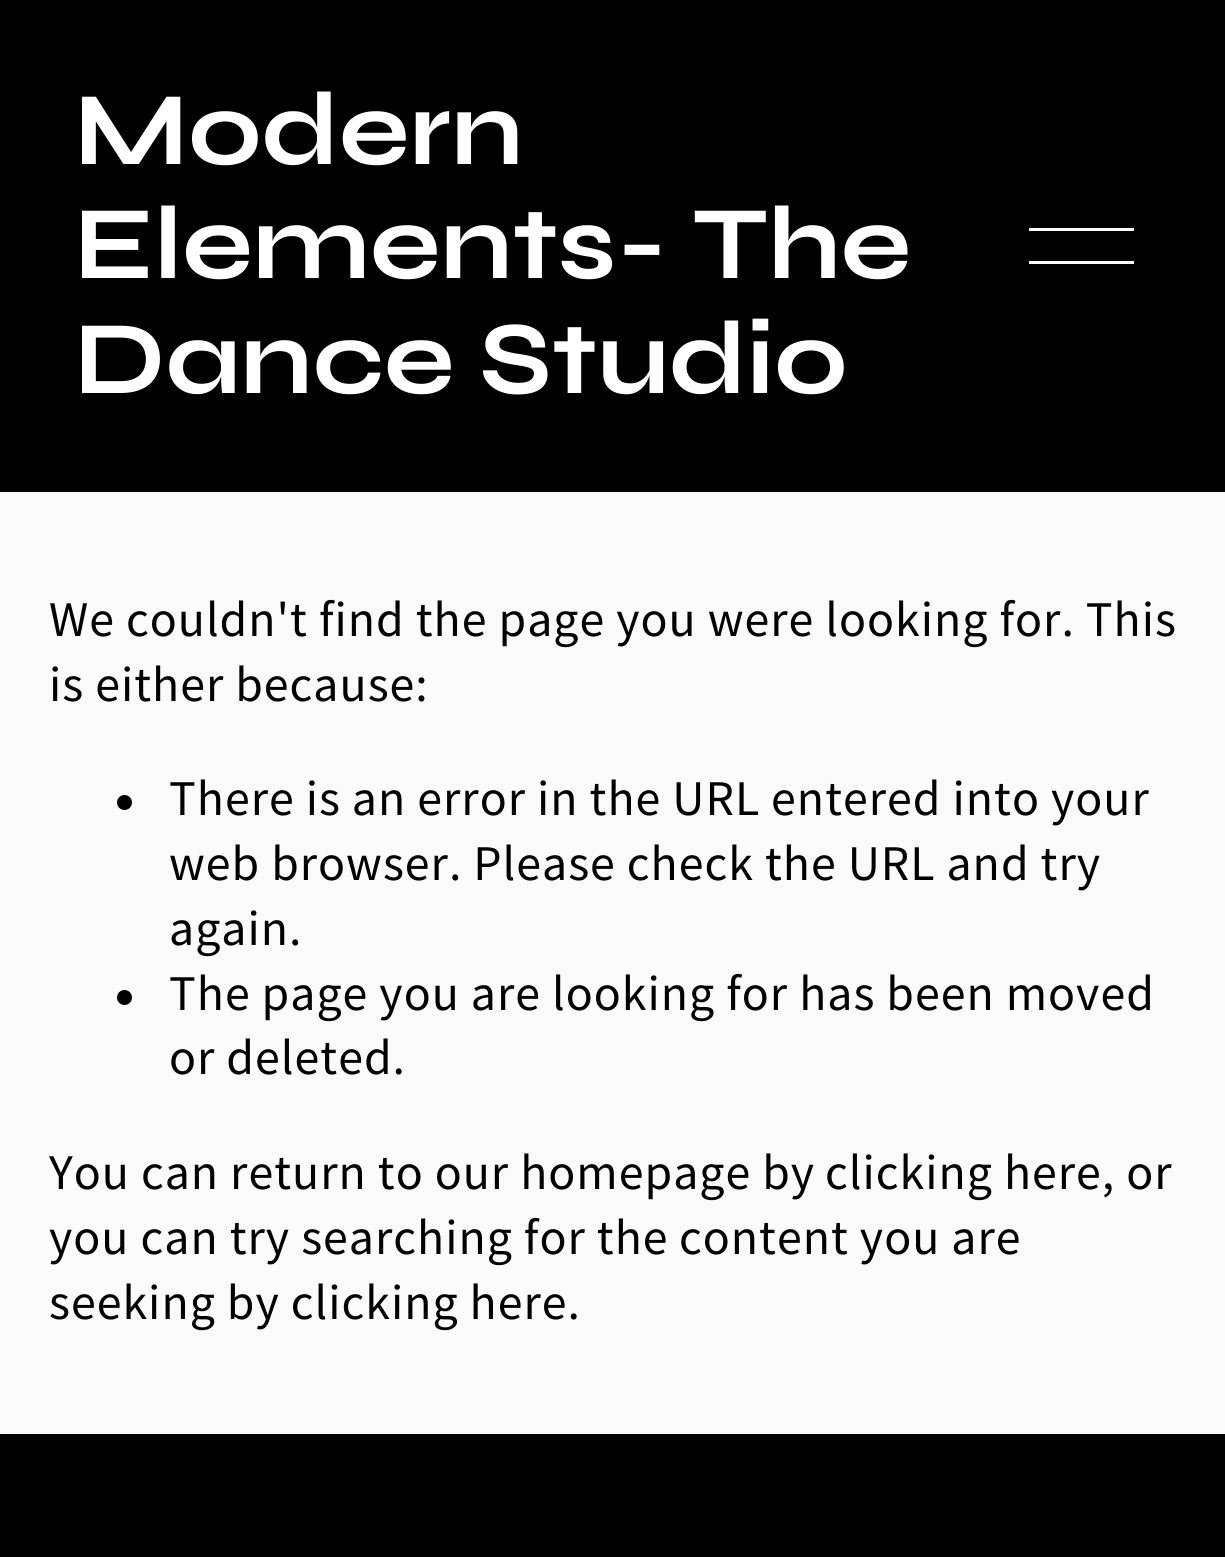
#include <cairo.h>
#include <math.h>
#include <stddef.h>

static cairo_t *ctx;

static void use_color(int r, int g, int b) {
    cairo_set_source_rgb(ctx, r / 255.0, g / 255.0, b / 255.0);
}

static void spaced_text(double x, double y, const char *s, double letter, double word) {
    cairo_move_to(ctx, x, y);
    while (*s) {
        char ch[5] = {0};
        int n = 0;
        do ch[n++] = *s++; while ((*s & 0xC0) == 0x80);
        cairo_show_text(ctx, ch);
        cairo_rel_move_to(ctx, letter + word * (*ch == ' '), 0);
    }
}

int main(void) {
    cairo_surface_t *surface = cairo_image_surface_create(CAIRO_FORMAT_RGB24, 1225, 1557);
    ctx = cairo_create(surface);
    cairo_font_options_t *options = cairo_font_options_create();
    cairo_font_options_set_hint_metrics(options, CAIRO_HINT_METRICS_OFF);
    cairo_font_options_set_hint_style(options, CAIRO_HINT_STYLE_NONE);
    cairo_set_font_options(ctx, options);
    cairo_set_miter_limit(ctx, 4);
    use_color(250, 250, 250);
    cairo_paint(ctx);
    use_color(0, 0, 0);
    cairo_rectangle(ctx, 0, 0, 1225, 492);
    cairo_fill(ctx);
    cairo_select_font_face(ctx, "Syne", CAIRO_FONT_SLANT_NORMAL, CAIRO_FONT_WEIGHT_BOLD);
    cairo_set_font_size(ctx, 104);
    use_color(255, 255, 255);
    cairo_move_to(ctx, 74, 164);
    cairo_show_text(ctx, "Modern");
    cairo_move_to(ctx, 74, 278);
    cairo_show_text(ctx, "Elements- The");
    cairo_move_to(ctx, 74, 393);
    cairo_show_text(ctx, "Dance Studio");
    cairo_rectangle(ctx, 1029, 228, 105, 3);
    cairo_fill(ctx);
    cairo_rectangle(ctx, 1029, 261, 105, 3);
    cairo_fill(ctx);
    cairo_select_font_face(ctx, "Source Sans Pro", CAIRO_FONT_SLANT_NORMAL, CAIRO_FONT_WEIGHT_NORMAL);
    cairo_set_font_size(ctx, 49.9);
    use_color(0, 0, 0);
    spaced_text(49, 636, "We couldn't find the page you were looking for. This", 1, 0);
    spaced_text(49, 701, "is either because:", 1, 0);
    cairo_new_path(ctx);
    cairo_arc(ctx, 124.5, 802.5, 7.5, 0, 2 * M_PI);
    cairo_fill(ctx);
    spaced_text(169, 815, "There is an error in the URL entered into your", 1, 0);
    spaced_text(169, 880, "web browser. Please check the URL and try", 1, 0);
    spaced_text(169, 945, "again.", 1, 0);
    cairo_new_path(ctx);
    cairo_arc(ctx, 124.5, 997.5, 7.5, 0, 2 * M_PI);
    cairo_fill(ctx);
    spaced_text(169, 1010, "The page you are looking for has been moved", 1, 0);
    spaced_text(169, 1074, "or deleted.", 1, 0);
    spaced_text(49, 1189, "You can return to our homepage by", 1, 0);
    spaced_text(825, 1189, "clicking here, or", 1, 0);
    spaced_text(49, 1254, "you can try searching for the", 1, 0);
    spaced_text(679, 1254, "content you are", 1, 0);
    spaced_text(49, 1319, "seeking by clicking here.", 1, 0);
    cairo_rectangle(ctx, 0, 1434, 1225, 123);
    cairo_fill(ctx);
    cairo_surface_write_to_png(surface, "result.png");
    cairo_font_options_destroy(options);
    cairo_destroy(ctx);
    cairo_surface_destroy(surface);
    return 0;
}
